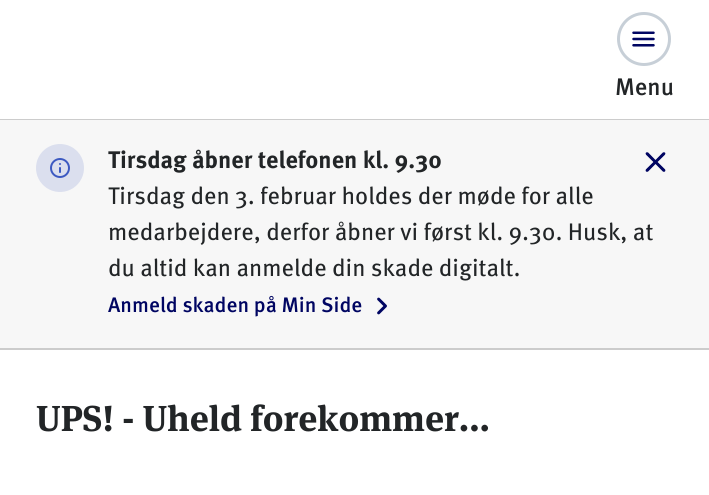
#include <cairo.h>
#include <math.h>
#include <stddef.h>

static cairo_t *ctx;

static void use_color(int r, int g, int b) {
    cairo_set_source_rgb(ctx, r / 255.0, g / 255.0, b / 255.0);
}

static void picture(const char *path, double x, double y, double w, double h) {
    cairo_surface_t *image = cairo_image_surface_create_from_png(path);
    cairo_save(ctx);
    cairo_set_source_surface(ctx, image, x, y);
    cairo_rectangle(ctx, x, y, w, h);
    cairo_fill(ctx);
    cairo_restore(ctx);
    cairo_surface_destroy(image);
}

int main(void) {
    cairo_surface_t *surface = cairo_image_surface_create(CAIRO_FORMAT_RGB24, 709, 495);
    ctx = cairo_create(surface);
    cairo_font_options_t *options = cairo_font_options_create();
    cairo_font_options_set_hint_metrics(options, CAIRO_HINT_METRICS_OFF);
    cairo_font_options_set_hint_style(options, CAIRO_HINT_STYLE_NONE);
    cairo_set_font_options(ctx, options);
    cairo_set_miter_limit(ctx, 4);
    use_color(255, 255, 255);
    cairo_paint(ctx);
    use_color(204, 204, 204);
    cairo_rectangle(ctx, 0, 119, 709, 1);
    cairo_fill(ctx);
    cairo_arc(ctx, 644, 39, 25.5, 0, 2 * M_PI);
    use_color(199, 207, 215);
    cairo_set_line_width(ctx, 3);
    cairo_stroke(ctx);
    picture("img1.png", 632, 31, 23, 16);
    cairo_select_font_face(ctx, "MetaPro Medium", CAIRO_FONT_SLANT_NORMAL, CAIRO_FONT_WEIGHT_NORMAL);
    cairo_set_font_size(ctx, 24);
    use_color(34, 37, 39);
    cairo_move_to(ctx, 615, 95);
    cairo_show_text(ctx, "Menu");
    use_color(247, 247, 247);
    cairo_rectangle(ctx, 0, 120, 709, 228);
    cairo_fill(ctx);
    use_color(204, 204, 204);
    cairo_rectangle(ctx, 0, 348, 709, 2);
    cairo_fill(ctx);
    use_color(219, 223, 238);
    cairo_arc(ctx, 60, 168, 24, 0, 2 * M_PI);
    cairo_fill(ctx);
    picture("img2.png", 50, 158, 20, 20);
    cairo_select_font_face(ctx, "MetaPro", CAIRO_FONT_SLANT_NORMAL, CAIRO_FONT_WEIGHT_BOLD);
    use_color(34, 37, 39);
    cairo_move_to(ctx, 108, 168);
    cairo_show_text(ctx, "Tirsdag åbner telefonen kl. 9.30");
    picture("img3.png", 645, 152, 21, 20);
    cairo_select_font_face(ctx, "MetaPro", CAIRO_FONT_SLANT_NORMAL, CAIRO_FONT_WEIGHT_NORMAL);
    cairo_move_to(ctx, 108, 204);
    cairo_show_text(ctx, "Tirsdag den 3. februar holdes der møde for alle");
    cairo_move_to(ctx, 108, 240);
    cairo_show_text(ctx, "medarbejdere, derfor åbner vi først kl. 9.30. Husk, at");
    cairo_move_to(ctx, 108, 276);
    cairo_show_text(ctx, "du altid kan anmelde din skade digitalt.");
    cairo_select_font_face(ctx, "MetaPro Medium", CAIRO_FONT_SLANT_NORMAL, CAIRO_FONT_WEIGHT_NORMAL);
    cairo_set_font_size(ctx, 21);
    use_color(0, 5, 98);
    cairo_move_to(ctx, 108, 312);
    cairo_show_text(ctx, "Anmeld skaden på Min Side");
    picture("img4.png", 377, 297, 10, 18);
    cairo_select_font_face(ctx, "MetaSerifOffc", CAIRO_FONT_SLANT_NORMAL, CAIRO_FONT_WEIGHT_NORMAL);
    cairo_set_font_size(ctx, 36);
    use_color(34, 37, 39);
    cairo_move_to(ctx, 36, 431);
    cairo_show_text(ctx, "UPS! - Uheld forekommer...");
    cairo_surface_write_to_png(surface, "result.png");
    cairo_font_options_destroy(options);
    cairo_destroy(ctx);
    cairo_surface_destroy(surface);
    return 0;
}
